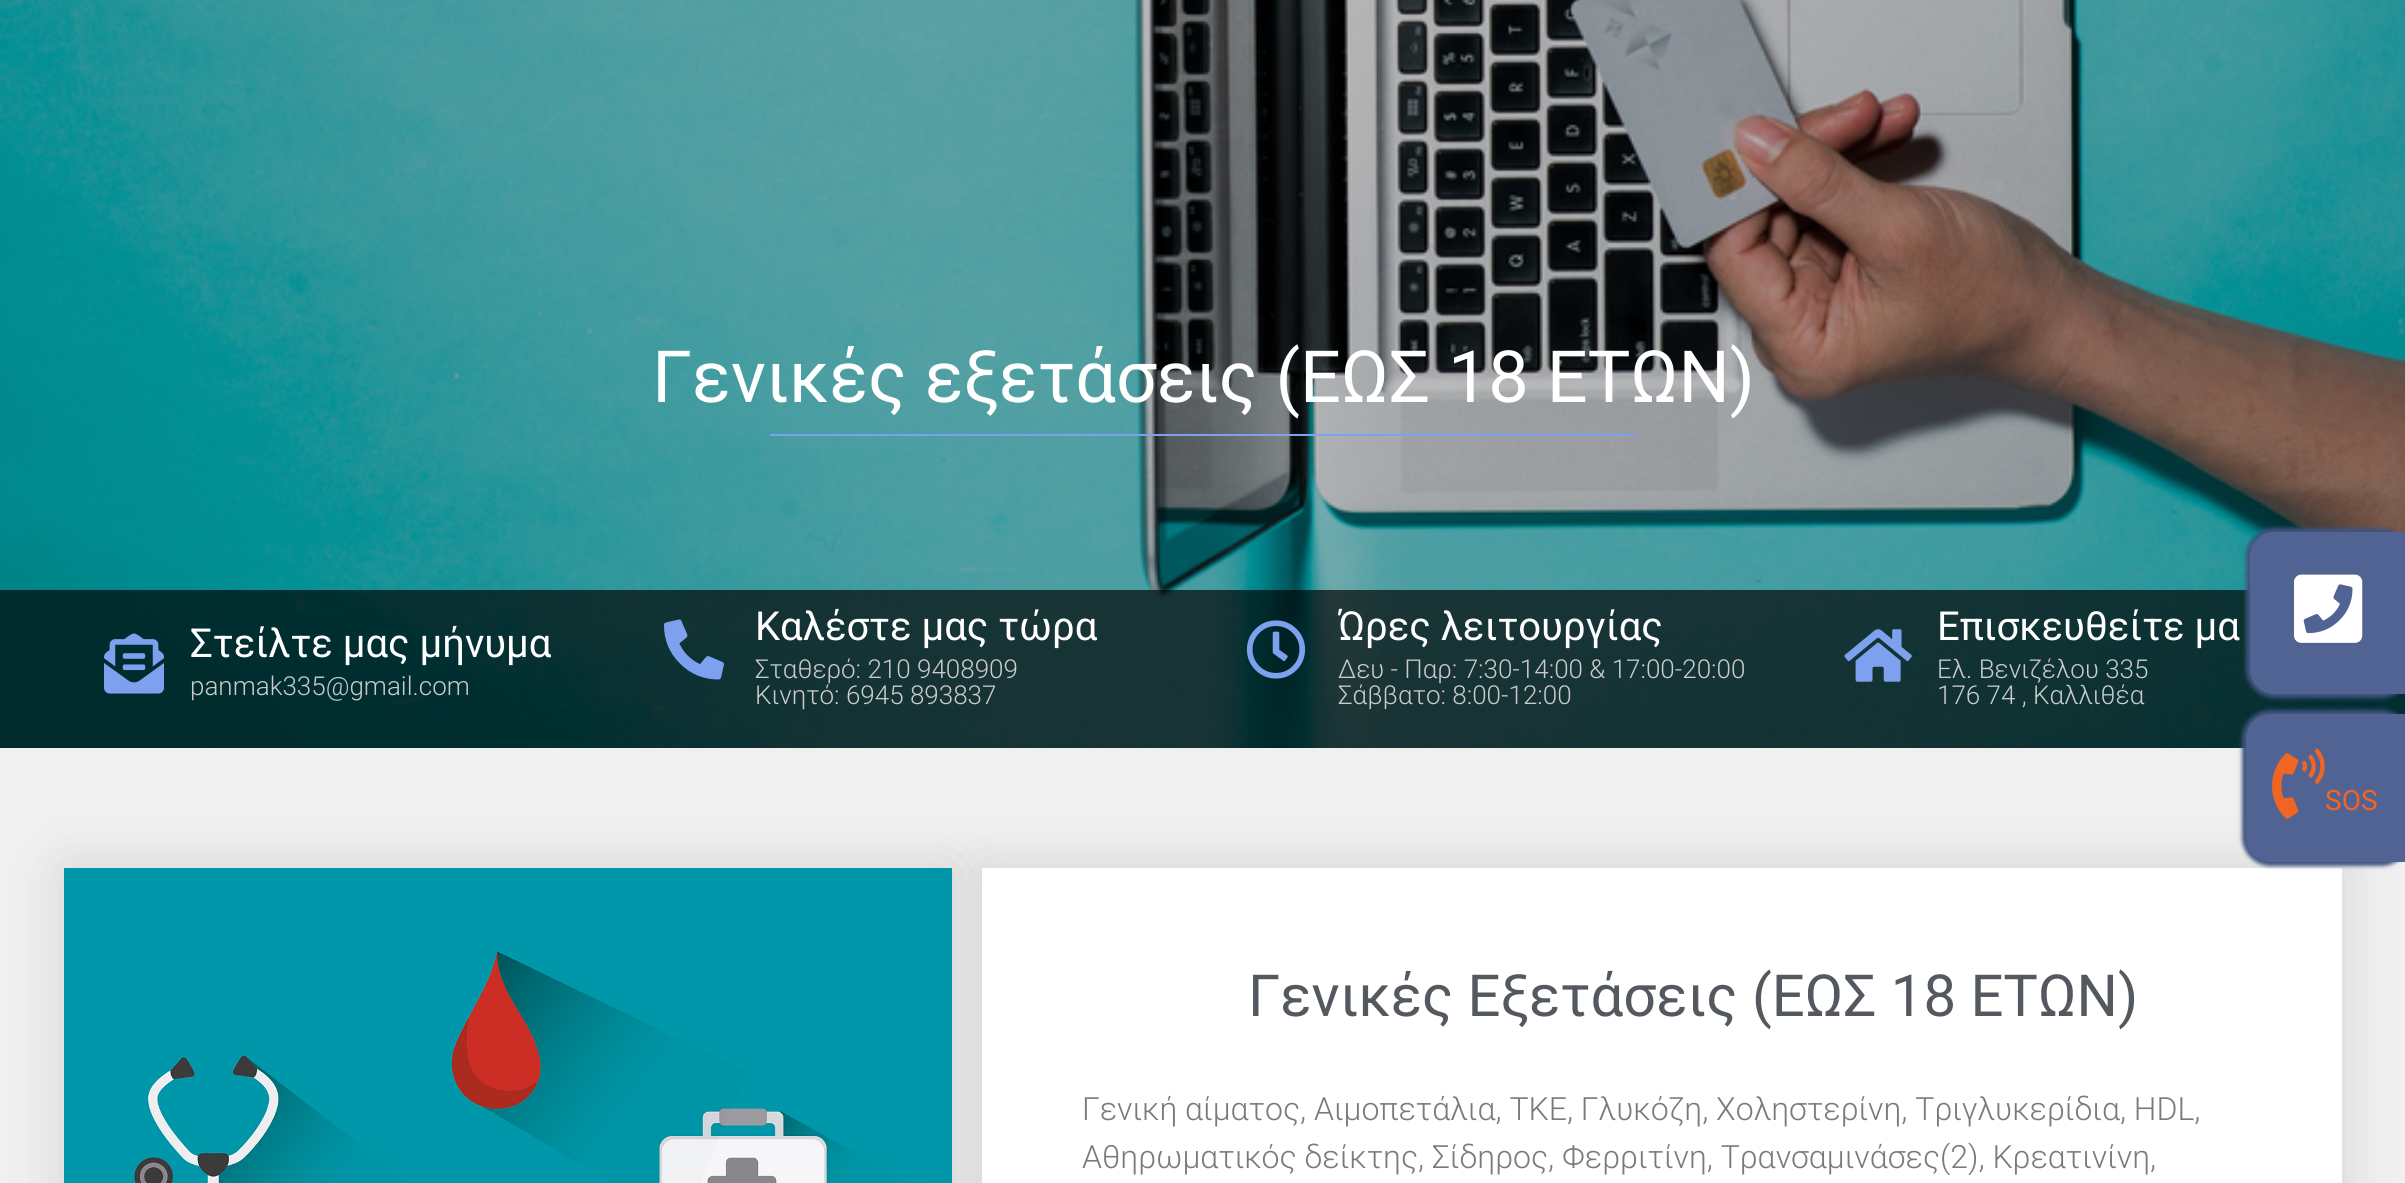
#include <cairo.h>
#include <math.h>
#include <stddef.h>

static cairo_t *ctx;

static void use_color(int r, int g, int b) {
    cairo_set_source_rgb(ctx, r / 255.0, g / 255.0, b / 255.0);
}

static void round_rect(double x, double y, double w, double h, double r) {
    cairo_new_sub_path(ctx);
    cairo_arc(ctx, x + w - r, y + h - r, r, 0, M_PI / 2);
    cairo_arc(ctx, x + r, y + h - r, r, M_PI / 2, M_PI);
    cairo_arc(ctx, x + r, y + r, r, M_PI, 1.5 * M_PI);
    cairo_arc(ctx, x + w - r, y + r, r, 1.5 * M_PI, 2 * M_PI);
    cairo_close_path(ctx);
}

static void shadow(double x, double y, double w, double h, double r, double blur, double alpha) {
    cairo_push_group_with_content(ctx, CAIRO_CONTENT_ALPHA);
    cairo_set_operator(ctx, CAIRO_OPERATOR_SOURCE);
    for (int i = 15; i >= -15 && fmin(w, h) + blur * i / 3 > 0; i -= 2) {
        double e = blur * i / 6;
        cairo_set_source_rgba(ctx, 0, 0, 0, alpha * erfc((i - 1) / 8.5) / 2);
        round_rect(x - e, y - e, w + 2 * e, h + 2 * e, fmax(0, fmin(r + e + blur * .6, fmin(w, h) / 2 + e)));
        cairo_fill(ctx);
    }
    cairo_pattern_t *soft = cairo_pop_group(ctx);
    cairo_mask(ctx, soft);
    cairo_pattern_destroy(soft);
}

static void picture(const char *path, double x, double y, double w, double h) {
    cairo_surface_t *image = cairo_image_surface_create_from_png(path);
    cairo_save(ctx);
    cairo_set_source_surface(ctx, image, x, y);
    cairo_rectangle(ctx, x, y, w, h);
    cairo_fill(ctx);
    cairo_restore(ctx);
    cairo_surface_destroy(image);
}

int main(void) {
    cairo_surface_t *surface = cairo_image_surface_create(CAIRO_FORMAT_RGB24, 2405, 1183);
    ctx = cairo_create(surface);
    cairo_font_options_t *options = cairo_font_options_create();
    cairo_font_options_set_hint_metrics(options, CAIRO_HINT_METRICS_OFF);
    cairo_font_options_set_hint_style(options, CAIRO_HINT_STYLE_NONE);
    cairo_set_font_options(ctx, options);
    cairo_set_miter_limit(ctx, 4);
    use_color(255, 255, 255);
    cairo_paint(ctx);
    picture("img1.png", 0, 0, 2405, 748);
    cairo_set_source_rgba(ctx, 0, 0, 0, 0.27);
    cairo_rectangle(ctx, 0, 0, 2405, 590);
    cairo_fill(ctx);
    cairo_set_source_rgba(ctx, 0, 0, 0, 0.76);
    cairo_rectangle(ctx, 0, 590, 2405, 158);
    cairo_fill(ctx);
    cairo_select_font_face(ctx, "Roboto", CAIRO_FONT_SLANT_NORMAL, CAIRO_FONT_WEIGHT_NORMAL);
    cairo_set_font_size(ctx, 72);
    use_color(255, 255, 255);
    cairo_move_to(ctx, 652, 402);
    cairo_show_text(ctx, "Γενικές εξετάσεις (EΩΣ 18 ΕΤΩΝ)");
    use_color(125, 161, 239);
    cairo_rectangle(ctx, 770, 434, 866, 2);
    cairo_fill(ctx);
    picture("img2.png", 104, 633, 60, 61);
    cairo_set_font_size(ctx, 40);
    use_color(255, 255, 255);
    cairo_move_to(ctx, 190, 657);
    cairo_show_text(ctx, "Στείλτε μας μήνυμα");
    cairo_select_font_face(ctx, "Roboto Light", CAIRO_FONT_SLANT_NORMAL, CAIRO_FONT_WEIGHT_NORMAL);
    cairo_set_font_size(ctx, 26);
    use_color(203, 203, 203);
    cairo_move_to(ctx, 190, 695);
    cairo_show_text(ctx, "panmak335@gmail.com");
    picture("img3.png", 664, 619, 60, 61);
    cairo_select_font_face(ctx, "Roboto", CAIRO_FONT_SLANT_NORMAL, CAIRO_FONT_WEIGHT_NORMAL);
    cairo_set_font_size(ctx, 40);
    use_color(255, 255, 255);
    cairo_move_to(ctx, 755, 640);
    cairo_show_text(ctx, "Καλέστε μας τώρα");
    cairo_select_font_face(ctx, "Roboto Light", CAIRO_FONT_SLANT_NORMAL, CAIRO_FONT_WEIGHT_NORMAL);
    cairo_set_font_size(ctx, 26);
    use_color(203, 203, 203);
    cairo_move_to(ctx, 755, 678);
    cairo_show_text(ctx, "Σταθερό: 210 9408909");
    cairo_move_to(ctx, 755, 704);
    cairo_show_text(ctx, "Κινητό: 6945 893837");
    picture("img4.png", 1246, 620, 60, 59);
    cairo_select_font_face(ctx, "Roboto", CAIRO_FONT_SLANT_NORMAL, CAIRO_FONT_WEIGHT_NORMAL);
    cairo_set_font_size(ctx, 40);
    use_color(255, 255, 255);
    cairo_move_to(ctx, 1338, 640);
    cairo_show_text(ctx, "Ώρες λειτουργίας");
    cairo_select_font_face(ctx, "Roboto Light", CAIRO_FONT_SLANT_NORMAL, CAIRO_FONT_WEIGHT_NORMAL);
    cairo_set_font_size(ctx, 26);
    use_color(203, 203, 203);
    cairo_move_to(ctx, 1338, 678);
    cairo_show_text(ctx, "Δευ - Παρ: 7:30-14:00 & 17:00-20:00");
    cairo_move_to(ctx, 1338, 704);
    cairo_show_text(ctx, "Σάββατο: 8:00-12:00");
    picture("img5.png", 1844, 629, 68, 53);
    cairo_select_font_face(ctx, "Roboto", CAIRO_FONT_SLANT_NORMAL, CAIRO_FONT_WEIGHT_NORMAL);
    cairo_set_font_size(ctx, 40);
    use_color(255, 255, 255);
    cairo_move_to(ctx, 1937, 640);
    cairo_show_text(ctx, "Επισκευθείτε μα");
    cairo_select_font_face(ctx, "Roboto Light", CAIRO_FONT_SLANT_NORMAL, CAIRO_FONT_WEIGHT_NORMAL);
    cairo_set_font_size(ctx, 26);
    use_color(203, 203, 203);
    cairo_move_to(ctx, 1937, 678);
    cairo_show_text(ctx, "Ελ. Βενιζέλου 335");
    cairo_move_to(ctx, 1937, 704);
    cairo_show_text(ctx, "176 74 , Καλλιθέα");
    use_color(240, 240, 240);
    cairo_rectangle(ctx, 0, 748, 2405, 435);
    cairo_fill(ctx);
    use_color(0, 0, 0);
    shadow(64, 868, 888, 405, 0, 30, 0.12);
    picture("img6.png", 64, 868, 888, 315);
    shadow(982, 868, 1360, 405, 0, 30, 0.12);
    use_color(255, 255, 255);
    cairo_rectangle(ctx, 982, 868, 1360, 315);
    cairo_fill(ctx);
    cairo_select_font_face(ctx, "Roboto", CAIRO_FONT_SLANT_NORMAL, CAIRO_FONT_WEIGHT_NORMAL);
    cairo_set_font_size(ctx, 58);
    use_color(84, 89, 95);
    cairo_move_to(ctx, 1248, 1016);
    cairo_show_text(ctx, "Γενικές Εξετάσεις (EΩΣ 18 ΕΤΩΝ)");
    cairo_select_font_face(ctx, "Roboto Light", CAIRO_FONT_SLANT_NORMAL, CAIRO_FONT_WEIGHT_NORMAL);
    cairo_set_font_size(ctx, 32);
    use_color(122, 122, 122);
    cairo_move_to(ctx, 1082, 1120);
    cairo_show_text(ctx, "Γενική αίματος, Αιμοπετάλια, TKE, Γλυκόζη, Χοληστερίνη, Τριγλυκερίδια, HDL,");
    cairo_move_to(ctx, 1082, 1168);
    cairo_show_text(ctx, "Αθηρωματικός δείκτης, Σίδηρος, Φερριτίνη, Τρανσαμινάσες(2), Κρεατινίνη,");
    use_color(64, 83, 126);
    shadow(2246, 528, 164, 170, 28, 2, 1);
    use_color(81, 99, 147);
    cairo_new_path(ctx);
    cairo_move_to(ctx, 2274, 533);
    cairo_line_to(ctx, 2405, 533);
    cairo_line_to(ctx, 2405, 693);
    cairo_line_to(ctx, 2274, 693);
    cairo_curve_to(ctx, 2261.5, 693, 2251, 682.5, 2251, 670);
    cairo_line_to(ctx, 2251, 556);
    cairo_curve_to(ctx, 2251, 543.5, 2261.5, 533, 2274, 533);
    cairo_close_path(ctx);
    cairo_fill_preserve(ctx);
    cairo_stroke(ctx);
    picture("img7.png", 2294, 574, 69, 69);
    use_color(64, 83, 126);
    shadow(2242, 710, 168, 156, 28, 2, 1);
    use_color(81, 99, 147);
    cairo_new_path(ctx);
    cairo_move_to(ctx, 2270, 715);
    cairo_line_to(ctx, 2405, 715);
    cairo_line_to(ctx, 2405, 861);
    cairo_line_to(ctx, 2270, 861);
    cairo_curve_to(ctx, 2257.5, 861, 2247, 850.5, 2247, 838);
    cairo_line_to(ctx, 2247, 738);
    cairo_curve_to(ctx, 2247, 725.5, 2257.5, 715, 2270, 715);
    cairo_close_path(ctx);
    cairo_fill_preserve(ctx);
    cairo_stroke(ctx);
    picture("img8.png", 2272, 748, 53, 71);
    cairo_select_font_face(ctx, "Roboto", CAIRO_FONT_SLANT_NORMAL, CAIRO_FONT_WEIGHT_NORMAL);
    cairo_set_font_size(ctx, 28);
    use_color(241, 101, 34);
    cairo_move_to(ctx, 2325, 810);
    cairo_show_text(ctx, "SOS");
    cairo_surface_write_to_png(surface, "result.png");
    cairo_font_options_destroy(options);
    cairo_destroy(ctx);
    cairo_surface_destroy(surface);
    return 0;
}
